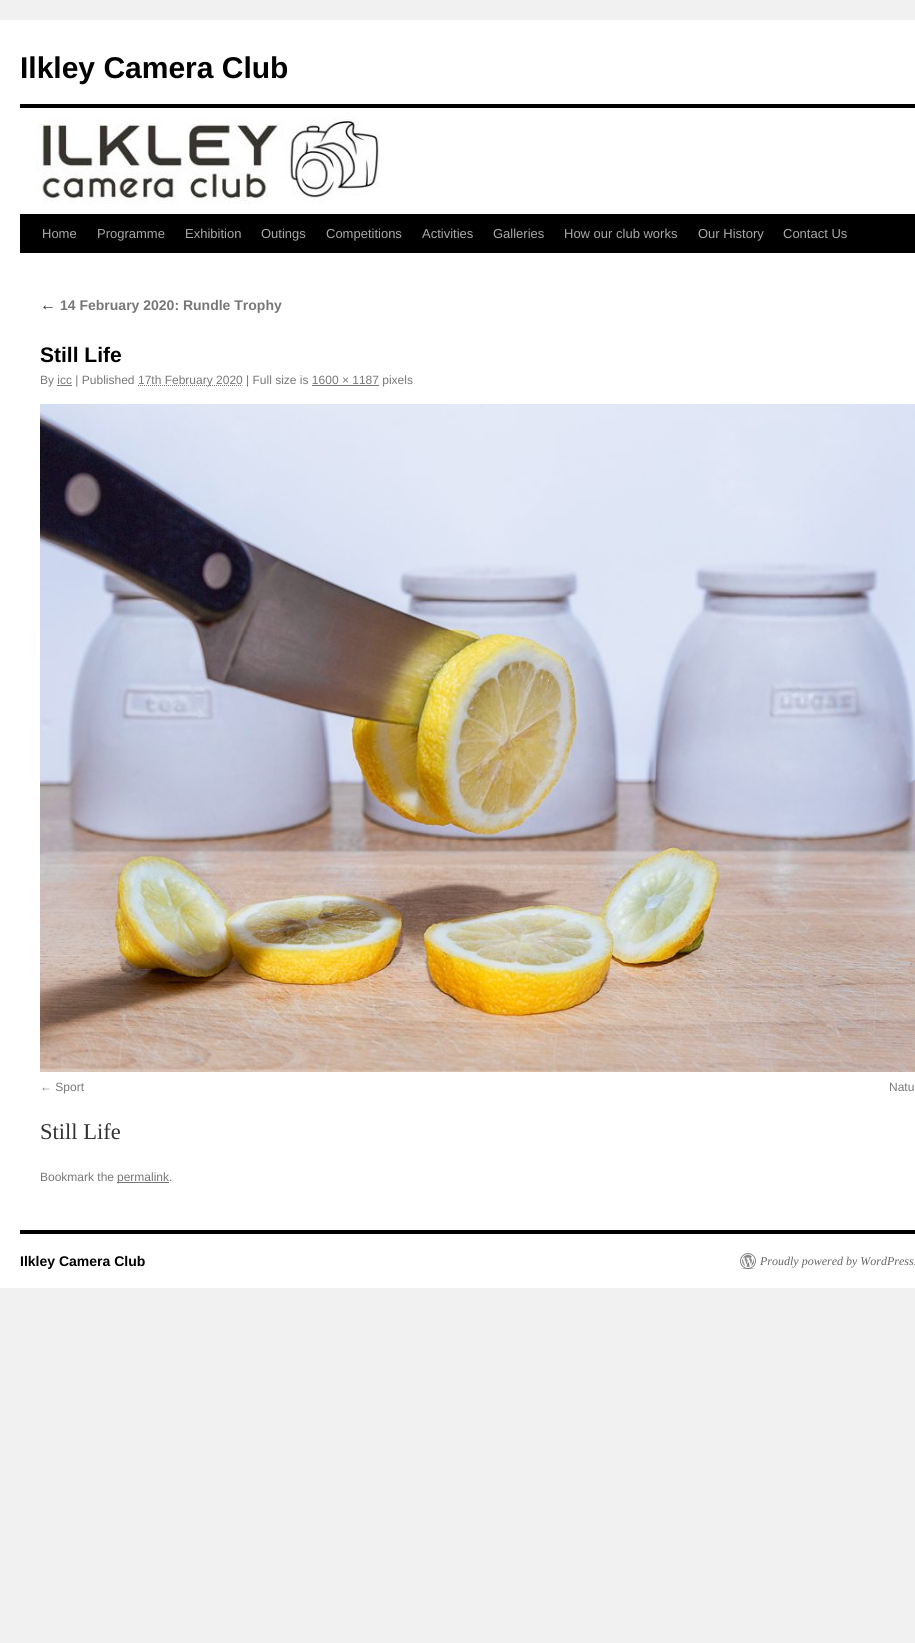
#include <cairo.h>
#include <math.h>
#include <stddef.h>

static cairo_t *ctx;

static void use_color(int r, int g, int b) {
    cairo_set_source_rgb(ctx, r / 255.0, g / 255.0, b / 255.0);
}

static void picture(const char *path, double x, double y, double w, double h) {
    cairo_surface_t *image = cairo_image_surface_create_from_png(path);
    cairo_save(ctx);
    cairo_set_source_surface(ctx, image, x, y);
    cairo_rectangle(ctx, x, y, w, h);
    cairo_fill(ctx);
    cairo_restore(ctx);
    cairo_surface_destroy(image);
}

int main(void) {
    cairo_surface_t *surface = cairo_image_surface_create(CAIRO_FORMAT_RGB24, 915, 1643);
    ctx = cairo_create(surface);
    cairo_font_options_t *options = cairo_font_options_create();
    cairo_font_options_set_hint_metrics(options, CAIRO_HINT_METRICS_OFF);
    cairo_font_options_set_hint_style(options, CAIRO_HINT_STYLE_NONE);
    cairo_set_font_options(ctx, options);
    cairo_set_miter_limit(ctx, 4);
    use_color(241, 241, 241);
    cairo_paint(ctx);
    use_color(255, 255, 255);
    cairo_rectangle(ctx, 0, 20, 915, 1268);
    cairo_fill(ctx);
    cairo_select_font_face(ctx, "Liberation Sans", CAIRO_FONT_SLANT_NORMAL, CAIRO_FONT_WEIGHT_BOLD);
    cairo_set_font_size(ctx, 30);
    use_color(0, 0, 0);
    cairo_move_to(ctx, 20, 78);
    cairo_show_text(ctx, "Ilkley Camera Club");
    cairo_rectangle(ctx, 20, 104, 895, 4);
    cairo_fill(ctx);
    cairo_rectangle(ctx, 20, 214, 895, 39);
    cairo_fill(ctx);
    picture("img1.png", 36, 116, 344, 88);
    cairo_select_font_face(ctx, "Liberation Sans", CAIRO_FONT_SLANT_NORMAL, CAIRO_FONT_WEIGHT_NORMAL);
    cairo_set_font_size(ctx, 13);
    use_color(170, 170, 170);
    cairo_move_to(ctx, 42, 238);
    cairo_show_text(ctx, "Home");
    cairo_move_to(ctx, 97, 238);
    cairo_show_text(ctx, "Programme");
    cairo_move_to(ctx, 185, 238);
    cairo_show_text(ctx, "Exhibition");
    cairo_move_to(ctx, 261, 238);
    cairo_show_text(ctx, "Outings");
    cairo_move_to(ctx, 326, 238);
    cairo_show_text(ctx, "Competitions");
    cairo_move_to(ctx, 422, 238);
    cairo_show_text(ctx, "Activities");
    cairo_move_to(ctx, 493, 238);
    cairo_show_text(ctx, "Galleries");
    cairo_move_to(ctx, 564, 238);
    cairo_show_text(ctx, "How our club works");
    cairo_move_to(ctx, 698, 238);
    cairo_show_text(ctx, "Our History");
    cairo_move_to(ctx, 783, 238);
    cairo_show_text(ctx, "Contact Us");
    cairo_select_font_face(ctx, "Liberation Serif", CAIRO_FONT_SLANT_ITALIC, CAIRO_FONT_WEIGHT_NORMAL);
    cairo_set_font_size(ctx, 16);
    use_color(51, 51, 51);
    cairo_move_to(ctx, 40, 310);
    cairo_show_text(ctx, "←");
    cairo_select_font_face(ctx, "Liberation Sans", CAIRO_FONT_SLANT_NORMAL, CAIRO_FONT_WEIGHT_BOLD);
    cairo_set_font_size(ctx, 14);
    use_color(119, 119, 119);
    cairo_move_to(ctx, 60, 310);
    cairo_show_text(ctx, "14 February 2020: Rundle Trophy");
    cairo_set_font_size(ctx, 21);
    use_color(0, 0, 0);
    cairo_move_to(ctx, 40, 362);
    cairo_show_text(ctx, "Still Life");
    cairo_select_font_face(ctx, "Liberation Sans", CAIRO_FONT_SLANT_NORMAL, CAIRO_FONT_WEIGHT_NORMAL);
    cairo_set_font_size(ctx, 12);
    use_color(119, 119, 119);
    cairo_move_to(ctx, 40, 384);
    cairo_show_text(ctx, "By icc | Published");
    cairo_new_path(ctx);
    cairo_move_to(ctx, 138, 385.5);
    cairo_line_to(ctx, 242.5, 385.5);
    cairo_set_line_width(ctx, 1);
    cairo_set_dash(ctx, (double[]){1, 1}, 2, 0);
    cairo_stroke(ctx);
    cairo_move_to(ctx, 138, 384);
    cairo_show_text(ctx, "17th February 2020 | Full size is 1600 × 1187 pixels");
    cairo_rectangle(ctx, 57, 385, 15, 1);
    cairo_fill(ctx);
    cairo_rectangle(ctx, 312, 385, 67, 1);
    cairo_fill(ctx);
    picture("img2.png", 40, 404, 875, 668);
    cairo_move_to(ctx, 40, 1091);
    cairo_show_text(ctx, "← Sport");
    cairo_move_to(ctx, 889, 1091);
    cairo_show_text(ctx, "Natu");
    cairo_select_font_face(ctx, "Liberation Serif", CAIRO_FONT_SLANT_NORMAL, CAIRO_FONT_WEIGHT_NORMAL);
    cairo_set_font_size(ctx, 22.5);
    use_color(51, 51, 51);
    cairo_move_to(ctx, 40, 1139);
    cairo_show_text(ctx, "Still Life");
    cairo_select_font_face(ctx, "Liberation Sans", CAIRO_FONT_SLANT_NORMAL, CAIRO_FONT_WEIGHT_NORMAL);
    cairo_set_font_size(ctx, 12);
    use_color(119, 119, 119);
    cairo_move_to(ctx, 40, 1181);
    cairo_show_text(ctx, "Bookmark the");
    cairo_rectangle(ctx, 117, 1182, 52, 1);
    cairo_fill(ctx);
    cairo_move_to(ctx, 117, 1181);
    cairo_show_text(ctx, "permalink.");
    use_color(0, 0, 0);
    cairo_rectangle(ctx, 20, 1230, 895, 4);
    cairo_fill(ctx);
    cairo_select_font_face(ctx, "Liberation Sans", CAIRO_FONT_SLANT_NORMAL, CAIRO_FONT_WEIGHT_BOLD);
    cairo_set_font_size(ctx, 14);
    cairo_move_to(ctx, 20, 1266);
    cairo_show_text(ctx, "Ilkley Camera Club");
    picture("img3.png", 740, 1253, 16, 16);
    cairo_select_font_face(ctx, "Liberation Serif", CAIRO_FONT_SLANT_ITALIC, CAIRO_FONT_WEIGHT_NORMAL);
    cairo_set_font_size(ctx, 12);
    use_color(102, 102, 102);
    cairo_move_to(ctx, 760, 1265);
    cairo_show_text(ctx, "Proudly powered by WordPress.");
    cairo_surface_write_to_png(surface, "result.png");
    cairo_font_options_destroy(options);
    cairo_destroy(ctx);
    cairo_surface_destroy(surface);
    return 0;
}
